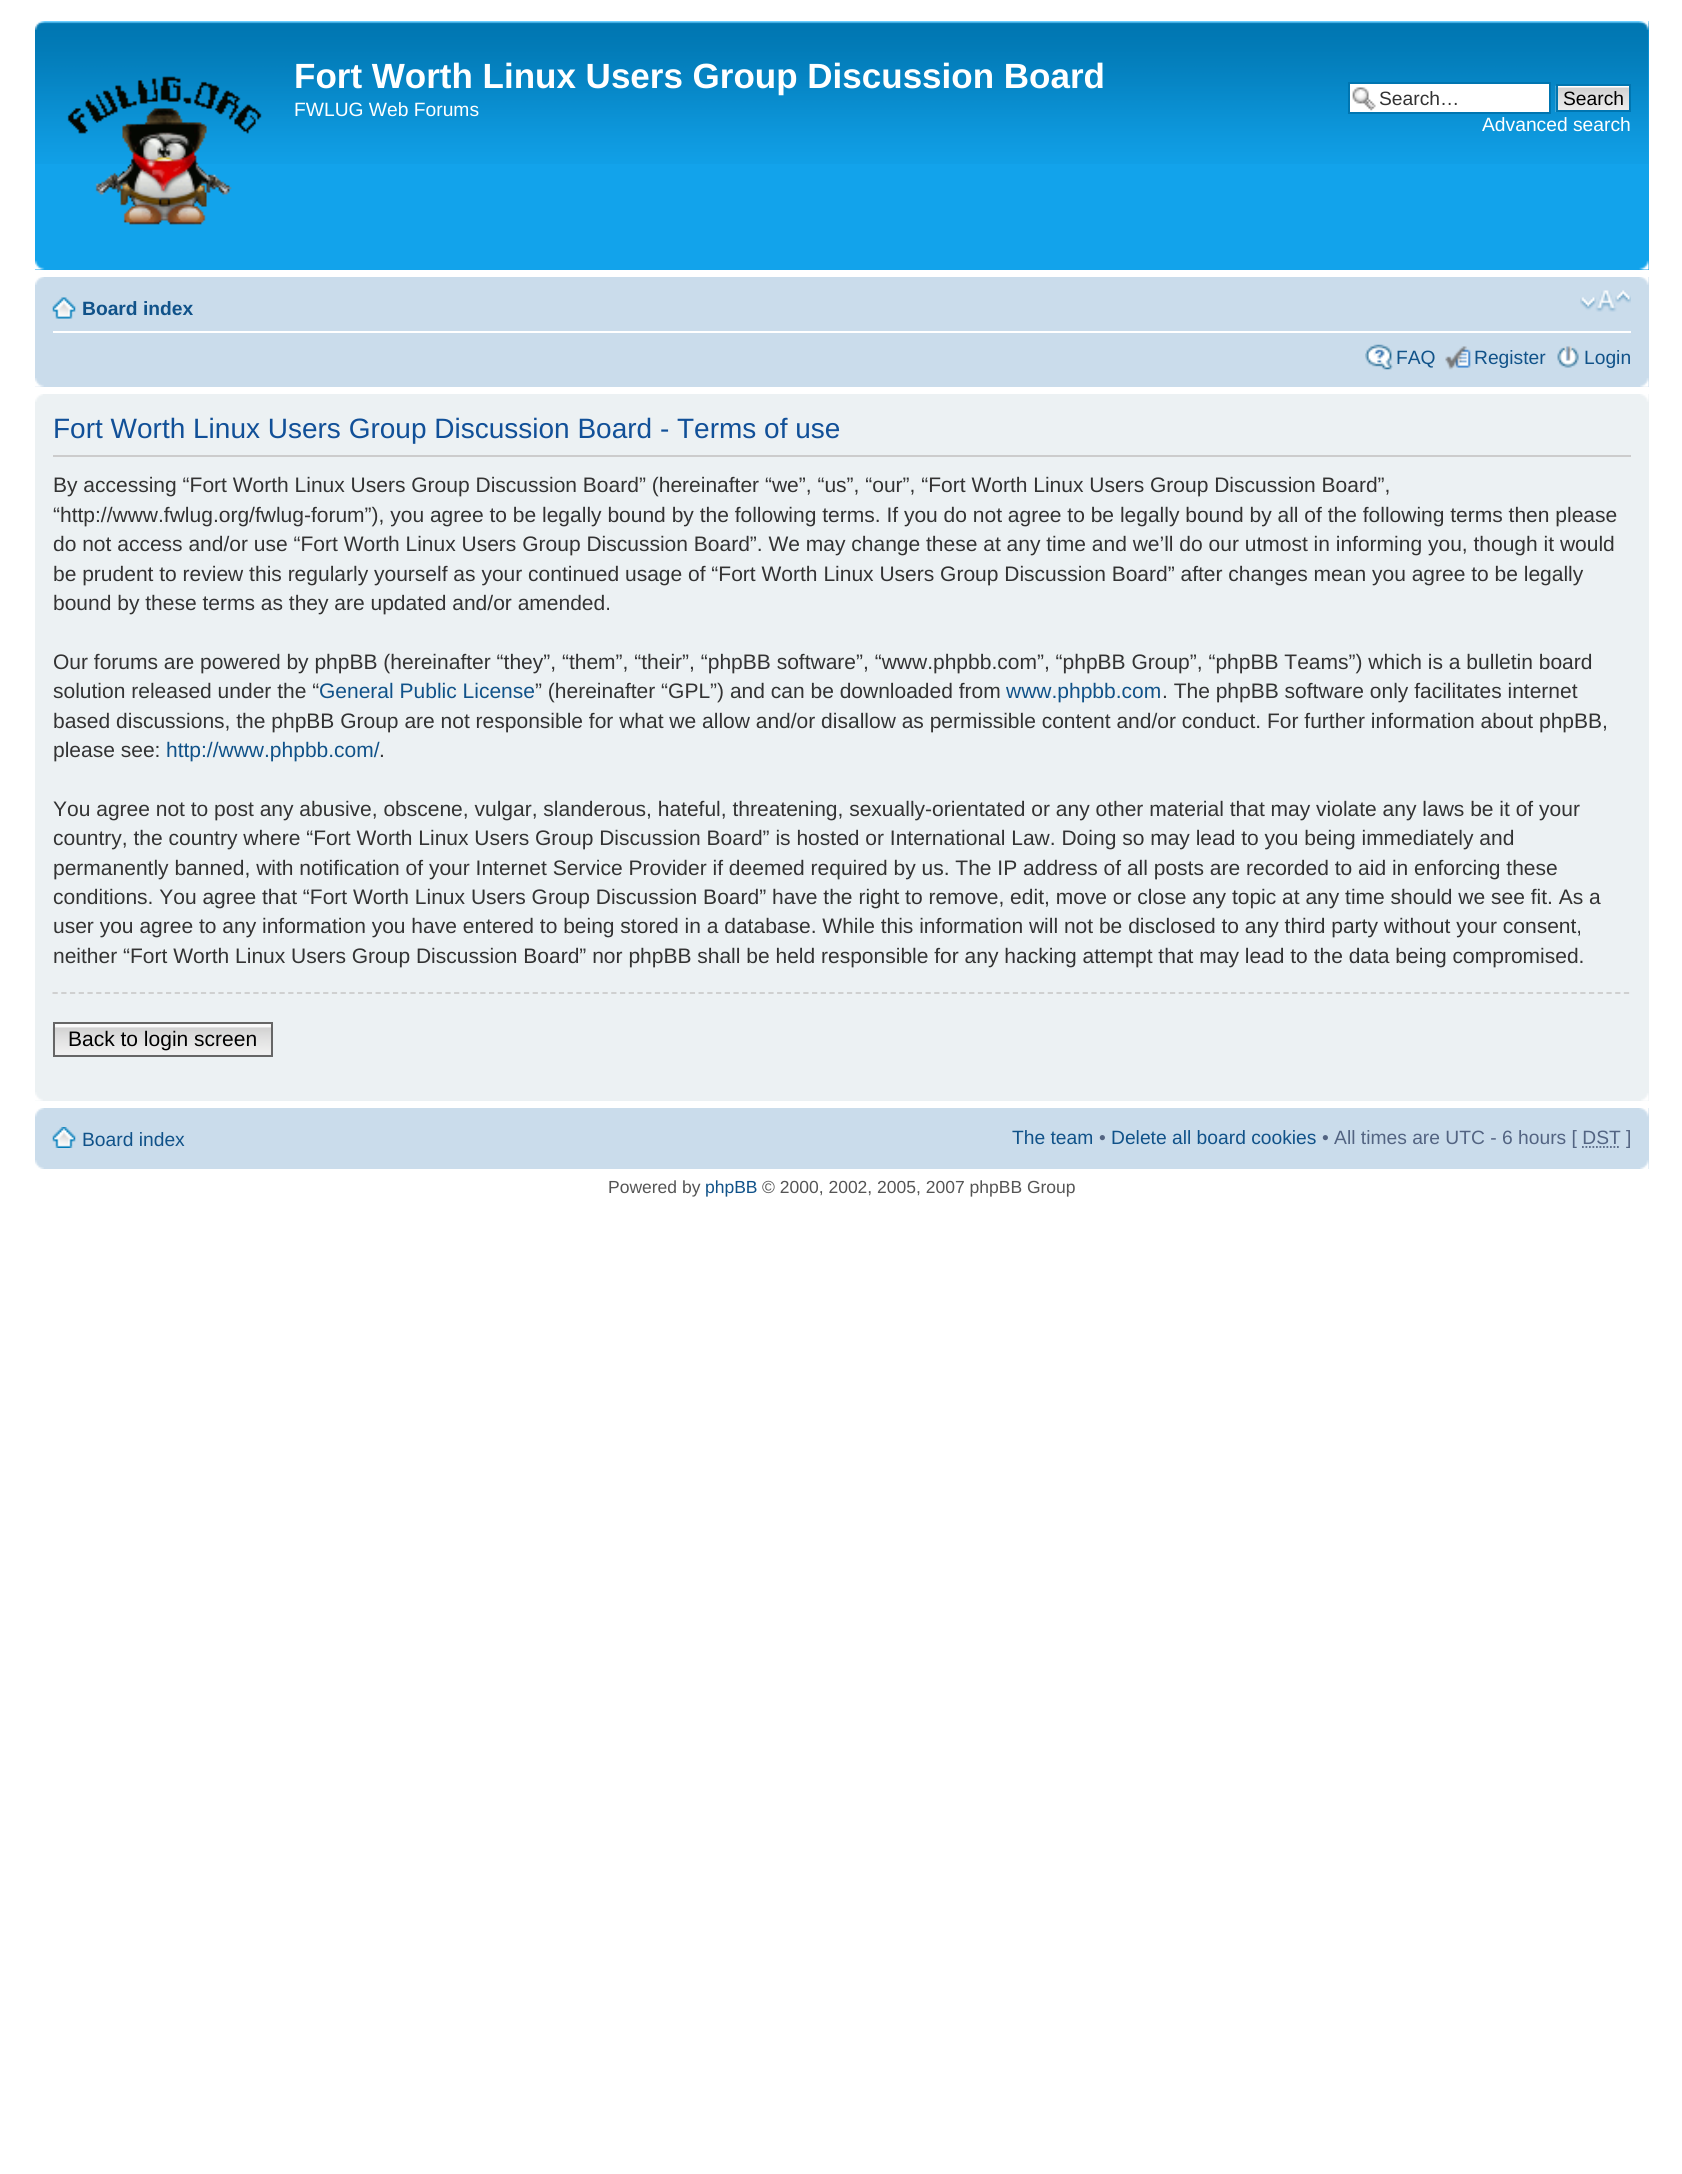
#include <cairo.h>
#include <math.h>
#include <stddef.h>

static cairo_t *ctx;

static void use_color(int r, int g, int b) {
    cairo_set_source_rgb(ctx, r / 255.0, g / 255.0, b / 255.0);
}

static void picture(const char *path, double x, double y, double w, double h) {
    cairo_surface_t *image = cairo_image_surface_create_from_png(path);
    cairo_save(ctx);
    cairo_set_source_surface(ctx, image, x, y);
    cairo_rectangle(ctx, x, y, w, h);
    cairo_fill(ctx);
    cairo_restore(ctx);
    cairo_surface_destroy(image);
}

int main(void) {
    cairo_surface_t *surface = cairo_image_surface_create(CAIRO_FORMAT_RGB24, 1682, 2174);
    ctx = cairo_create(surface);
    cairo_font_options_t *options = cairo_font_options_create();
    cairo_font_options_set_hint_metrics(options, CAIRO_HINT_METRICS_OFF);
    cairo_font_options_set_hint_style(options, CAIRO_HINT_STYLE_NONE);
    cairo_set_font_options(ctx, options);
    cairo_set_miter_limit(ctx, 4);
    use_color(255, 255, 255);
    cairo_paint(ctx);
    use_color(18, 163, 235);
    cairo_rectangle(ctx, 35, 21, 1614, 249);
    cairo_fill(ctx);
    picture("img1.png", 35, 21, 1614, 143);
    picture("img2.png", 35, 21, 10, 9);
    picture("img3.png", 1639, 21, 10, 9);
    picture("img4.png", 67, 76, 195, 149);
    cairo_select_font_face(ctx, "Liberation Sans", CAIRO_FONT_SLANT_NORMAL, CAIRO_FONT_WEIGHT_BOLD);
    cairo_set_font_size(ctx, 35);
    use_color(255, 255, 255);
    cairo_move_to(ctx, 294, 88);
    cairo_show_text(ctx, "Fort Worth Linux Users Group Discussion Board");
    cairo_select_font_face(ctx, "Liberation Sans", CAIRO_FONT_SLANT_NORMAL, CAIRO_FONT_WEIGHT_NORMAL);
    cairo_set_font_size(ctx, 19.25);
    cairo_move_to(ctx, 294, 116);
    cairo_show_text(ctx, "FWLUG Web Forums");
    cairo_rectangle(ctx, 1350, 84, 199, 28);
    cairo_fill(ctx);
    picture("img5.png", 1352, 87, 24, 24);
    cairo_rectangle(ctx, 1349, 83, 201, 30);
    use_color(0, 117, 176);
    cairo_stroke(ctx);
    use_color(51, 51, 51);
    cairo_move_to(ctx, 1379, 105);
    cairo_show_text(ctx, "Search…");
    picture("img6.png", 1555, 85, 74, 27);
    cairo_rectangle(ctx, 1557, 85, 73, 26);
    use_color(0, 117, 176);
    cairo_stroke(ctx);
    use_color(0, 0, 0);
    cairo_move_to(ctx, 1563, 105);
    cairo_show_text(ctx, "Search");
    use_color(255, 255, 255);
    cairo_move_to(ctx, 1482, 131);
    cairo_show_text(ctx, "Advanced search");
    picture("img7.png", 35, 260, 10, 10);
    picture("img8.png", 1639, 260, 10, 10);
    use_color(202, 220, 235);
    cairo_rectangle(ctx, 35, 277, 1614, 110);
    cairo_fill(ctx);
    picture("img9.png", 35, 277, 9, 8);
    picture("img10.png", 1639, 277, 10, 8);
    use_color(255, 255, 255);
    cairo_rectangle(ctx, 53, 331, 1578, 2);
    cairo_fill(ctx);
    picture("img11.png", 52, 297, 24, 22);
    cairo_select_font_face(ctx, "Liberation Sans", CAIRO_FONT_SLANT_NORMAL, CAIRO_FONT_WEIGHT_BOLD);
    use_color(16, 82, 137);
    cairo_move_to(ctx, 82, 315);
    cairo_show_text(ctx, "Board index");
    picture("img12.png", 1580, 290, 51, 22);
    picture("img13.png", 1365, 344, 28, 26);
    cairo_select_font_face(ctx, "Liberation Sans", CAIRO_FONT_SLANT_NORMAL, CAIRO_FONT_WEIGHT_NORMAL);
    cairo_move_to(ctx, 1396, 364);
    cairo_show_text(ctx, "FAQ");
    picture("img14.png", 1445, 346, 26, 24);
    cairo_move_to(ctx, 1474, 364);
    cairo_show_text(ctx, "Register");
    picture("img15.png", 1557, 346, 22, 22);
    cairo_move_to(ctx, 1584, 364);
    cairo_show_text(ctx, "Login");
    picture("img16.png", 35, 378, 9, 9);
    picture("img17.png", 1640, 378, 9, 9);
    use_color(236, 241, 243);
    cairo_rectangle(ctx, 35, 394, 1614, 707);
    cairo_fill(ctx);
    picture("img18.png", 35, 394, 8, 8);
    picture("img19.png", 1640, 394, 9, 8);
    use_color(204, 204, 204);
    cairo_rectangle(ctx, 53, 455, 1578, 2);
    cairo_fill(ctx);
    cairo_set_font_size(ctx, 28);
    use_color(17, 80, 152);
    cairo_move_to(ctx, 53, 438);
    cairo_show_text(ctx, "Fort Worth Linux Users Group Discussion Board - Terms of use");
    cairo_set_font_size(ctx, 21);
    use_color(51, 51, 51);
    cairo_move_to(ctx, 53, 492);
    cairo_show_text(ctx, "By accessing “Fort Worth Linux Users Group Discussion Board” (hereinafter “we”, “us”, “our”, “Fort Worth Linux Users Group Discussion Board”,");
    cairo_move_to(ctx, 53, 522);
    cairo_show_text(ctx, "“http://www.fwlug.org/fwlug-forum”), you agree to be legally bound by the following terms. If you do not agree to be legally bound by all of the following terms then please");
    cairo_move_to(ctx, 53, 551);
    cairo_show_text(ctx, "do not access and/or use “Fort Worth Linux Users Group Discussion Board”. We may change these at any time and we’ll do our utmost in informing you, though it would");
    cairo_move_to(ctx, 53, 581);
    cairo_show_text(ctx, "be prudent to review this regularly yourself as your continued usage of “Fort Worth Linux Users Group Discussion Board” after changes mean you agree to be legally");
    cairo_move_to(ctx, 53, 610);
    cairo_show_text(ctx, "bound by these terms as they are updated and/or amended.");
    cairo_move_to(ctx, 53, 669);
    cairo_show_text(ctx, "Our forums are powered by phpBB (hereinafter “they”, “them”, “their”, “phpBB software”, “www.phpbb.com”, “phpBB Group”, “phpBB Teams”) which is a bulletin board");
    cairo_move_to(ctx, 53, 698);
    cairo_show_text(ctx, "solution released under the “");
    use_color(16, 82, 137);
    cairo_move_to(ctx, 319, 698);
    cairo_show_text(ctx, "General Public License");
    use_color(51, 51, 51);
    cairo_move_to(ctx, 535, 698);
    cairo_show_text(ctx, "” (hereinafter “GPL”) and can be downloaded from");
    use_color(16, 82, 137);
    cairo_move_to(ctx, 1006, 698);
    cairo_show_text(ctx, "www.phpbb.com");
    use_color(51, 51, 51);
    cairo_move_to(ctx, 1162, 698);
    cairo_show_text(ctx, ". The phpBB software only facilitates internet");
    cairo_move_to(ctx, 53, 728);
    cairo_show_text(ctx, "based discussions, the phpBB Group are not responsible for what we allow and/or disallow as permissible content and/or conduct. For further information about phpBB,");
    cairo_move_to(ctx, 53, 757);
    cairo_show_text(ctx, "please see:");
    use_color(16, 82, 137);
    cairo_move_to(ctx, 166, 757);
    cairo_show_text(ctx, "http://www.phpbb.com/");
    use_color(51, 51, 51);
    cairo_move_to(ctx, 379, 757);
    cairo_show_text(ctx, ".");
    cairo_move_to(ctx, 53, 816);
    cairo_show_text(ctx, "You agree not to post any abusive, obscene, vulgar, slanderous, hateful, threatening, sexually-orientated or any other material that may violate any laws be it of your");
    cairo_move_to(ctx, 53, 845);
    cairo_show_text(ctx, "country, the country where “Fort Worth Linux Users Group Discussion Board” is hosted or International Law. Doing so may lead to you being immediately and");
    cairo_move_to(ctx, 53, 875);
    cairo_show_text(ctx, "permanently banned, with notification of your Internet Service Provider if deemed required by us. The IP address of all posts are recorded to aid in enforcing these");
    cairo_move_to(ctx, 53, 904);
    cairo_show_text(ctx, "conditions. You agree that “Fort Worth Linux Users Group Discussion Board” have the right to remove, edit, move or close any topic at any time should we see fit. As a");
    cairo_move_to(ctx, 53, 933);
    cairo_show_text(ctx, "user you agree to any information you have entered to being stored in a database. While this information will not be disclosed to any third party without your consent,");
    cairo_move_to(ctx, 53, 963);
    cairo_show_text(ctx, "neither “Fort Worth Linux Users Group Discussion Board” nor phpBB shall be held responsible for any hacking attempt that may lead to the data being compromised.");
    cairo_new_path(ctx);
    cairo_move_to(ctx, 52.5, 993);
    cairo_line_to(ctx, 1631, 993);
    use_color(204, 204, 204);
    cairo_set_line_width(ctx, 1.8);
    cairo_set_dash(ctx, (double[]){5.25, 3.48}, 2, 0);
    cairo_stroke(ctx);
    picture("img20.png", 52, 1027, 219, 30);
    use_color(250, 250, 250);
    cairo_rectangle(ctx, 55, 1024, 216, 3);
    cairo_fill(ctx);
    cairo_rectangle(ctx, 54, 1023, 218, 33);
    use_color(102, 102, 102);
    cairo_set_line_width(ctx, 2);
    cairo_set_dash(ctx, NULL, 0, 0);
    cairo_stroke(ctx);
    use_color(0, 0, 0);
    cairo_move_to(ctx, 68, 1046);
    cairo_show_text(ctx, "Back to login screen");
    picture("img21.png", 35, 1092, 8, 9);
    picture("img22.png", 1641, 1093, 8, 8);
    use_color(202, 220, 235);
    cairo_rectangle(ctx, 35, 1108, 1614, 61);
    cairo_fill(ctx);
    picture("img23.png", 35, 1108, 9, 9);
    picture("img24.png", 1639, 1108, 10, 9);
    picture("img25.png", 52, 1127, 24, 21);
    cairo_set_font_size(ctx, 19.25);
    use_color(16, 82, 137);
    cairo_move_to(ctx, 82, 1146);
    cairo_show_text(ctx, "Board index");
    cairo_move_to(ctx, 1012, 1144);
    cairo_show_text(ctx, "The team");
    use_color(83, 100, 130);
    cairo_move_to(ctx, 1099, 1144);
    cairo_show_text(ctx, "•");
    use_color(16, 82, 137);
    cairo_move_to(ctx, 1111, 1144);
    cairo_show_text(ctx, "Delete all board cookies");
    use_color(83, 100, 130);
    cairo_move_to(ctx, 1322, 1144);
    cairo_show_text(ctx, "• All times are UTC - 6 hours [ DST ]");
    cairo_new_path(ctx);
    cairo_move_to(ctx, 1582, 1147);
    cairo_line_to(ctx, 1620.5, 1147);
    cairo_set_line_width(ctx, 1.8);
    cairo_set_dash(ctx, (double[]){1.75, 1.75}, 2, 0);
    cairo_stroke(ctx);
    picture("img26.png", 35, 1160, 9, 9);
    picture("img27.png", 1640, 1160, 9, 9);
    cairo_set_font_size(ctx, 17.5);
    use_color(85, 85, 85);
    cairo_move_to(ctx, 608, 1193);
    cairo_show_text(ctx, "Powered by");
    use_color(16, 82, 137);
    cairo_move_to(ctx, 705, 1193);
    cairo_show_text(ctx, "phpBB");
    use_color(85, 85, 85);
    cairo_move_to(ctx, 762, 1193);
    cairo_show_text(ctx, "© 2000, 2002, 2005, 2007 phpBB Group");
    cairo_surface_write_to_png(surface, "result.png");
    cairo_font_options_destroy(options);
    cairo_destroy(ctx);
    cairo_surface_destroy(surface);
    return 0;
}
